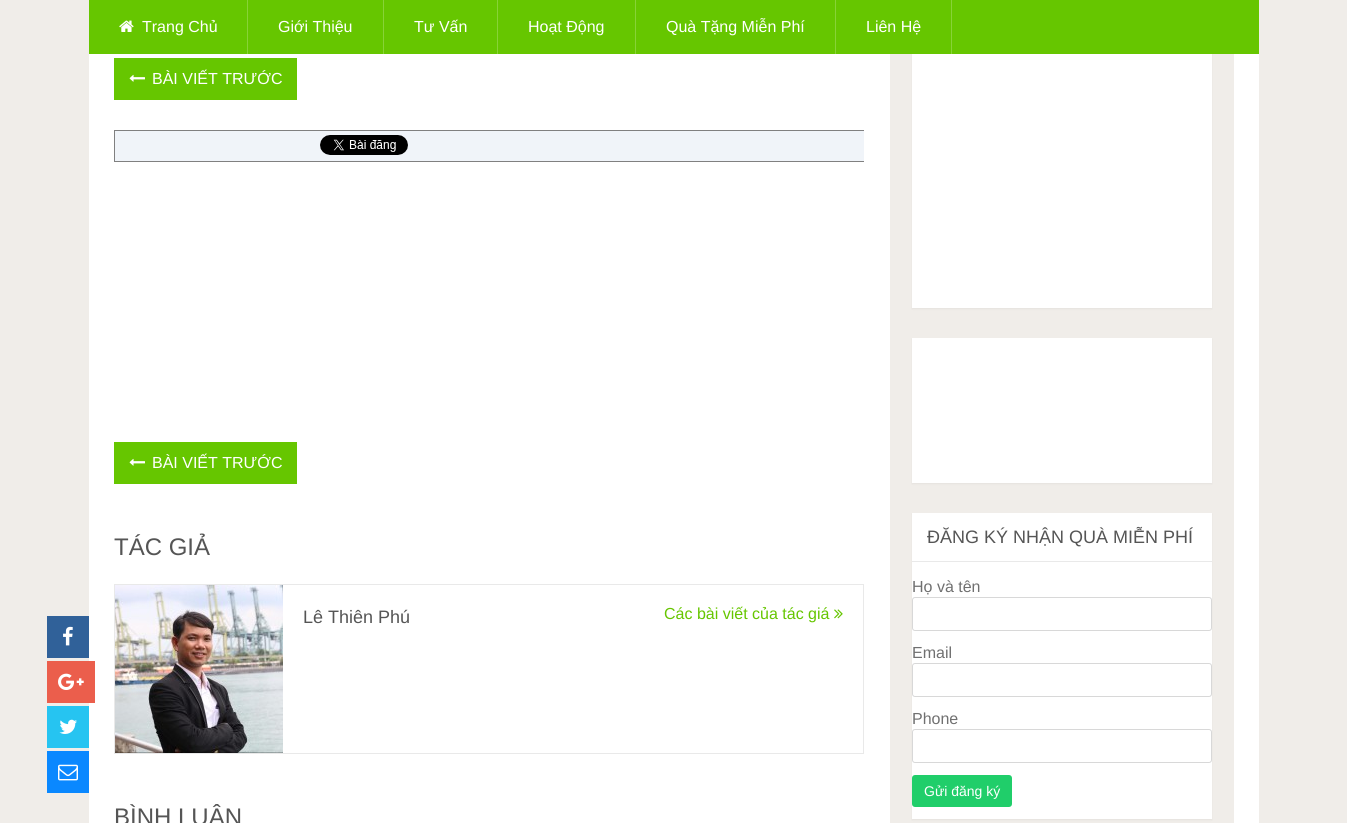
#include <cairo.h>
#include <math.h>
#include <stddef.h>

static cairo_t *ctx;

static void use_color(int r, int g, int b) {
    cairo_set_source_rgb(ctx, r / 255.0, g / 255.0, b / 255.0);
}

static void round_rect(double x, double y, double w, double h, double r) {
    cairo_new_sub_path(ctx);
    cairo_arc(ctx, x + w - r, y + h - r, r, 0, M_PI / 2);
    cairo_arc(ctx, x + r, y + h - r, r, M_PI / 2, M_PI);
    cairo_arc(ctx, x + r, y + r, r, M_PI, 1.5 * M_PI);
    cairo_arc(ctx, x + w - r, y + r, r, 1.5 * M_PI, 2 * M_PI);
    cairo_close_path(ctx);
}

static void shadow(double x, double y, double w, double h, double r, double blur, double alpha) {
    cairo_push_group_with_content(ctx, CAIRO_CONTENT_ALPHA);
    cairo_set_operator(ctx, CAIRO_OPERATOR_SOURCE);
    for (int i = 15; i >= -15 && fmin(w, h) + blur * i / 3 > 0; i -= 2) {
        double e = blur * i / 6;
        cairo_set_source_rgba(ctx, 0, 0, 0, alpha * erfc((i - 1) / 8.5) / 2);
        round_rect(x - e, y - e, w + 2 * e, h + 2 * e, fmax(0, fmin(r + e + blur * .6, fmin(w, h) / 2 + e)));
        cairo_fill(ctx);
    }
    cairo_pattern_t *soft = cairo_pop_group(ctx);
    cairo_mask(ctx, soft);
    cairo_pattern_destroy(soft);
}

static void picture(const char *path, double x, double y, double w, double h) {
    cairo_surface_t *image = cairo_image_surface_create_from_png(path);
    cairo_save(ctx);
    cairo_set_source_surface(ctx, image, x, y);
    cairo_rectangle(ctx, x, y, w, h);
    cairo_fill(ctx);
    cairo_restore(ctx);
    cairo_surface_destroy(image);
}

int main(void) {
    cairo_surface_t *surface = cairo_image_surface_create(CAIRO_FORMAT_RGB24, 1347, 823);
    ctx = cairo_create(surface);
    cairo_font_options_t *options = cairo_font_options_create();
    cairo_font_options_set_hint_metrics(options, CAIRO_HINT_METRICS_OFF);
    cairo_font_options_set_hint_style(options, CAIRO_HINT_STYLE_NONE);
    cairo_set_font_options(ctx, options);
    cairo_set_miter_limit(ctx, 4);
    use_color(240, 237, 233);
    cairo_paint(ctx);
    use_color(255, 255, 255);
    cairo_rectangle(ctx, 89, 54, 1170, 769);
    cairo_fill(ctx);
    use_color(240, 237, 233);
    cairo_rectangle(ctx, 890, 54, 344, 769);
    cairo_fill(ctx);
    use_color(0, 0, 0);
    shadow(912, -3, 300, 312, 0, 1, 0.05);
    use_color(102, 198, 0);
    cairo_rectangle(ctx, 89, 0, 1170, 54);
    cairo_fill(ctx);
    use_color(136, 211, 56);
    cairo_rectangle(ctx, 247, 0, 1, 54);
    cairo_fill(ctx);
    picture("img1.png", 119, 20, 15, 12);
    cairo_select_font_face(ctx, "Liberation Sans", CAIRO_FONT_SLANT_NORMAL, CAIRO_FONT_WEIGHT_NORMAL);
    cairo_set_font_size(ctx, 16);
    use_color(255, 255, 255);
    cairo_move_to(ctx, 142, 32);
    cairo_show_text(ctx, "Trang Chủ");
    use_color(136, 211, 56);
    cairo_rectangle(ctx, 383, 0, 1, 54);
    cairo_fill(ctx);
    use_color(255, 255, 255);
    cairo_move_to(ctx, 278, 32);
    cairo_show_text(ctx, "Giới Thiệu");
    use_color(136, 211, 56);
    cairo_rectangle(ctx, 497, 0, 1, 54);
    cairo_fill(ctx);
    use_color(255, 255, 255);
    cairo_move_to(ctx, 414, 32);
    cairo_show_text(ctx, "Tư Vấn");
    use_color(136, 211, 56);
    cairo_rectangle(ctx, 635, 0, 1, 54);
    cairo_fill(ctx);
    use_color(255, 255, 255);
    cairo_move_to(ctx, 528, 32);
    cairo_show_text(ctx, "Hoạt Động");
    use_color(136, 211, 56);
    cairo_rectangle(ctx, 835, 0, 1, 54);
    cairo_fill(ctx);
    use_color(255, 255, 255);
    cairo_move_to(ctx, 666, 32);
    cairo_show_text(ctx, "Quà Tặng Miễn Phí");
    use_color(136, 211, 56);
    cairo_rectangle(ctx, 951, 0, 1, 54);
    cairo_fill(ctx);
    use_color(255, 255, 255);
    cairo_move_to(ctx, 866, 32);
    cairo_show_text(ctx, "Liên Hệ");
    use_color(102, 198, 0);
    cairo_rectangle(ctx, 114, 58, 183, 42);
    cairo_fill(ctx);
    picture("img2.png", 129, 74, 16, 8);
    use_color(255, 255, 255);
    cairo_move_to(ctx, 152, 84);
    cairo_show_text(ctx, "BÀI VIẾT TRƯỚC");
    use_color(240, 244, 249);
    cairo_rectangle(ctx, 115, 131, 749, 30);
    cairo_fill(ctx);
    cairo_save(ctx);
    cairo_rectangle(ctx, 114, 0, 750, 514);
    cairo_clip(ctx);
    cairo_rectangle(ctx, 114.5, 130.5, 751, 31);
    use_color(128, 128, 128);
    cairo_set_line_width(ctx, 1);
    cairo_stroke(ctx);
    cairo_restore(ctx);
    picture("img3.png", 320, 135, 88, 20);
    use_color(102, 198, 0);
    cairo_rectangle(ctx, 114, 442, 183, 42);
    cairo_fill(ctx);
    picture("img2.png", 129, 458, 16, 8);
    use_color(255, 255, 255);
    cairo_move_to(ctx, 152, 468);
    cairo_show_text(ctx, "BÀI VIẾT TRƯỚC");
    use_color(48, 97, 153);
    cairo_rectangle(ctx, 47, 616, 42, 42);
    cairo_fill(ctx);
    picture("img4.png", 63, 626, 10, 20);
    use_color(235, 94, 76);
    cairo_rectangle(ctx, 47, 661, 48, 42);
    cairo_fill(ctx);
    picture("img5.png", 58, 673, 26, 17);
    use_color(38, 196, 241);
    cairo_rectangle(ctx, 47, 706, 42, 42);
    cairo_fill(ctx);
    picture("img6.png", 59, 719, 18, 15);
    use_color(10, 136, 255);
    cairo_rectangle(ctx, 47, 751, 42, 42);
    cairo_fill(ctx);
    picture("img7.png", 58, 764, 20, 17);
    cairo_set_font_size(ctx, 24);
    use_color(85, 85, 85);
    cairo_move_to(ctx, 114, 555);
    cairo_show_text(ctx, "TÁC GIẢ");
    cairo_rectangle(ctx, 114.5, 584.5, 749, 169);
    use_color(233, 233, 233);
    cairo_set_line_width(ctx, 1);
    cairo_stroke(ctx);
    picture("img8.png", 115, 585, 168, 168);
    cairo_set_font_size(ctx, 18);
    use_color(85, 85, 85);
    cairo_move_to(ctx, 303, 623);
    cairo_show_text(ctx, "Lê Thiên Phú");
    cairo_set_font_size(ctx, 16);
    use_color(102, 198, 0);
    cairo_move_to(ctx, 664, 619);
    cairo_show_text(ctx, "Các bài viết của tác giá");
    picture("img9.png", 834, 609, 9, 10);
    cairo_set_font_size(ctx, 24);
    use_color(85, 85, 85);
    cairo_move_to(ctx, 114, 825);
    cairo_show_text(ctx, "BÌNH LUẬN");
    use_color(255, 255, 255);
    cairo_rectangle(ctx, 912, 54, 300, 254);
    cairo_fill(ctx);
    use_color(0, 0, 0);
    shadow(912, 339, 300, 145, 0, 1, 0.05);
    use_color(255, 255, 255);
    cairo_rectangle(ctx, 912, 338, 300, 145);
    cairo_fill(ctx);
    use_color(0, 0, 0);
    shadow(912, 514, 300, 306, 0, 1, 0.05);
    use_color(255, 255, 255);
    cairo_rectangle(ctx, 912, 513, 300, 306);
    cairo_fill(ctx);
    use_color(233, 233, 233);
    cairo_rectangle(ctx, 912, 561, 300, 1);
    cairo_fill(ctx);
    cairo_set_font_size(ctx, 18);
    use_color(85, 85, 85);
    cairo_move_to(ctx, 927, 543);
    cairo_show_text(ctx, "ĐĂNG KÝ NHẬN QUÀ MIỄN PHÍ");
    cairo_set_font_size(ctx, 16);
    use_color(112, 112, 112);
    cairo_move_to(ctx, 912, 592);
    cairo_show_text(ctx, "Họ và tên");
    round_rect(912.5, 597.5, 299, 33, 2.5);
    use_color(216, 216, 216);
    cairo_stroke(ctx);
    use_color(112, 112, 112);
    cairo_move_to(ctx, 912, 658);
    cairo_show_text(ctx, "Email");
    round_rect(912.5, 663.5, 299, 33, 2.5);
    use_color(216, 216, 216);
    cairo_stroke(ctx);
    use_color(112, 112, 112);
    cairo_move_to(ctx, 912, 724);
    cairo_show_text(ctx, "Phone");
    round_rect(912.5, 729.5, 299, 33, 2.5);
    use_color(216, 216, 216);
    cairo_stroke(ctx);
    use_color(32, 206, 106);
    round_rect(912, 775, 100, 32, 3);
    cairo_fill(ctx);
    cairo_set_font_size(ctx, 14);
    use_color(255, 255, 255);
    cairo_move_to(ctx, 924, 796);
    cairo_show_text(ctx, "Gửi đăng ký");
    cairo_surface_write_to_png(surface, "result.png");
    cairo_font_options_destroy(options);
    cairo_destroy(ctx);
    cairo_surface_destroy(surface);
    return 0;
}
